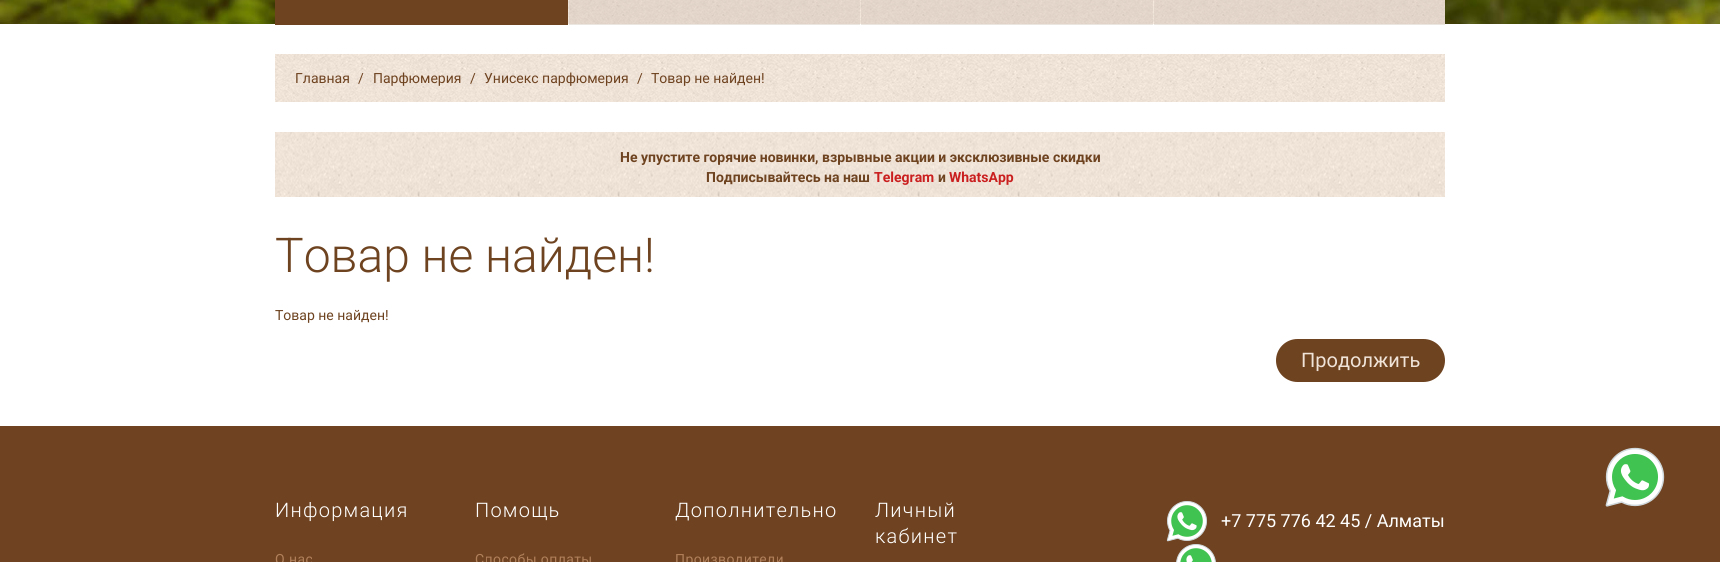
#include <cairo.h>
#include <math.h>
#include <stddef.h>

static cairo_t *ctx;

static void use_color(int r, int g, int b) {
    cairo_set_source_rgb(ctx, r / 255.0, g / 255.0, b / 255.0);
}

static void spaced_text(double x, double y, const char *s, double letter, double word) {
    cairo_move_to(ctx, x, y);
    while (*s) {
        char ch[5] = {0};
        int n = 0;
        do ch[n++] = *s++; while ((*s & 0xC0) == 0x80);
        cairo_show_text(ctx, ch);
        cairo_rel_move_to(ctx, letter + word * (*ch == ' '), 0);
    }
}

static void round_rect(double x, double y, double w, double h, double r) {
    cairo_new_sub_path(ctx);
    cairo_arc(ctx, x + w - r, y + h - r, r, 0, M_PI / 2);
    cairo_arc(ctx, x + r, y + h - r, r, M_PI / 2, M_PI);
    cairo_arc(ctx, x + r, y + r, r, M_PI, 1.5 * M_PI);
    cairo_arc(ctx, x + w - r, y + r, r, 1.5 * M_PI, 2 * M_PI);
    cairo_close_path(ctx);
}

static void picture(const char *path, double x, double y, double w, double h) {
    cairo_surface_t *image = cairo_image_surface_create_from_png(path);
    cairo_save(ctx);
    cairo_set_source_surface(ctx, image, x, y);
    cairo_rectangle(ctx, x, y, w, h);
    cairo_fill(ctx);
    cairo_restore(ctx);
    cairo_surface_destroy(image);
}

int main(void) {
    cairo_surface_t *surface = cairo_image_surface_create(CAIRO_FORMAT_RGB24, 1720, 562);
    ctx = cairo_create(surface);
    cairo_font_options_t *options = cairo_font_options_create();
    cairo_font_options_set_hint_metrics(options, CAIRO_HINT_METRICS_OFF);
    cairo_font_options_set_hint_style(options, CAIRO_HINT_STYLE_NONE);
    cairo_set_font_options(ctx, options);
    cairo_set_miter_limit(ctx, 4);
    use_color(255, 255, 255);
    cairo_paint(ctx);
    picture("img1.png", 0, 0, 1720, 24);
    picture("img2.png", 568, 0, 877, 24);
    use_color(110, 67, 32);
    cairo_rectangle(ctx, 275, 0, 293, 25);
    cairo_fill(ctx);
    cairo_set_source_rgba(ctx, 0.816, 0.757, 0.71, 0.4);
    cairo_rectangle(ctx, 569, 0, 291, 25);
    cairo_fill(ctx);
    cairo_rectangle(ctx, 861, 0, 292, 25);
    cairo_fill(ctx);
    cairo_rectangle(ctx, 1154, 0, 291, 25);
    cairo_fill(ctx);
    picture("img3.png", 275, 54, 1170, 48);
    cairo_select_font_face(ctx, "Roboto", CAIRO_FONT_SLANT_NORMAL, CAIRO_FONT_WEIGHT_NORMAL);
    cairo_set_font_size(ctx, 14);
    use_color(110, 67, 32);
    cairo_move_to(ctx, 295, 83);
    cairo_show_text(ctx, "Главная");
    cairo_move_to(ctx, 358, 83);
    cairo_show_text(ctx, "/");
    cairo_move_to(ctx, 373, 83);
    cairo_show_text(ctx, "Парфюмерия");
    cairo_move_to(ctx, 470, 83);
    cairo_show_text(ctx, "/");
    cairo_move_to(ctx, 484, 83);
    cairo_show_text(ctx, "Унисекс парфюмерия");
    cairo_move_to(ctx, 637, 83);
    cairo_show_text(ctx, "/");
    cairo_move_to(ctx, 651, 83);
    cairo_show_text(ctx, "Товар не найден!");
    picture("img4.png", 275, 132, 1170, 65);
    cairo_select_font_face(ctx, "Roboto", CAIRO_FONT_SLANT_NORMAL, CAIRO_FONT_WEIGHT_BOLD);
    cairo_move_to(ctx, 620, 162);
    cairo_show_text(ctx, "Не упустите горячие новинки, взрывные акции и эксклюзивные скидки");
    cairo_move_to(ctx, 706, 182);
    cairo_show_text(ctx, "Подписывайтесь на наш");
    use_color(202, 31, 31);
    cairo_move_to(ctx, 874, 182);
    cairo_show_text(ctx, "Telegram");
    use_color(110, 67, 32);
    cairo_move_to(ctx, 938, 182);
    cairo_show_text(ctx, "и");
    use_color(202, 31, 31);
    cairo_move_to(ctx, 949, 182);
    cairo_show_text(ctx, "WhatsApp");
    cairo_select_font_face(ctx, "Roboto Light", CAIRO_FONT_SLANT_NORMAL, CAIRO_FONT_WEIGHT_NORMAL);
    cairo_set_font_size(ctx, 48);
    use_color(110, 67, 32);
    cairo_move_to(ctx, 275, 272);
    cairo_show_text(ctx, "Товар не найден!");
    cairo_select_font_face(ctx, "Roboto", CAIRO_FONT_SLANT_NORMAL, CAIRO_FONT_WEIGHT_NORMAL);
    cairo_set_font_size(ctx, 14);
    cairo_move_to(ctx, 275, 320);
    cairo_show_text(ctx, "Товар не найден!");
    round_rect(1276, 339, 169, 43, 21.5);
    cairo_fill(ctx);
    cairo_set_font_size(ctx, 20);
    use_color(240, 227, 216);
    cairo_move_to(ctx, 1301, 367);
    cairo_show_text(ctx, "Продолжить");
    use_color(111, 67, 33);
    cairo_rectangle(ctx, 0, 426, 1720, 136);
    cairo_fill(ctx);
    cairo_select_font_face(ctx, "Roboto Light", CAIRO_FONT_SLANT_NORMAL, CAIRO_FONT_WEIGHT_NORMAL);
    use_color(255, 255, 255);
    spaced_text(275, 517, "Информация", 1.25, 0);
    cairo_select_font_face(ctx, "Roboto", CAIRO_FONT_SLANT_NORMAL, CAIRO_FONT_WEIGHT_NORMAL);
    cairo_set_font_size(ctx, 14);
    use_color(177, 128, 91);
    spaced_text(275, 564, "О нас", 0.4, 0);
    cairo_select_font_face(ctx, "Roboto Light", CAIRO_FONT_SLANT_NORMAL, CAIRO_FONT_WEIGHT_NORMAL);
    cairo_set_font_size(ctx, 20);
    use_color(255, 255, 255);
    spaced_text(475, 517, "Помощь", 1.25, 0);
    cairo_select_font_face(ctx, "Roboto", CAIRO_FONT_SLANT_NORMAL, CAIRO_FONT_WEIGHT_NORMAL);
    cairo_set_font_size(ctx, 14);
    use_color(177, 128, 91);
    spaced_text(475, 564, "Способы оплаты", 0.4, 0);
    cairo_select_font_face(ctx, "Roboto Light", CAIRO_FONT_SLANT_NORMAL, CAIRO_FONT_WEIGHT_NORMAL);
    cairo_set_font_size(ctx, 20);
    use_color(255, 255, 255);
    spaced_text(675, 517, "Дополнительно", 1.25, 0);
    cairo_select_font_face(ctx, "Roboto", CAIRO_FONT_SLANT_NORMAL, CAIRO_FONT_WEIGHT_NORMAL);
    cairo_set_font_size(ctx, 14);
    use_color(177, 128, 91);
    spaced_text(675, 564, "Производители", 0.4, 0);
    cairo_select_font_face(ctx, "Roboto Light", CAIRO_FONT_SLANT_NORMAL, CAIRO_FONT_WEIGHT_NORMAL);
    cairo_set_font_size(ctx, 20);
    use_color(255, 255, 255);
    spaced_text(875, 517, "Личный", 1.25, 0);
    spaced_text(875, 543, "кабинет", 1.25, 0);
    picture("img5.png", 1166, 501, 41, 41);
    cairo_select_font_face(ctx, "Roboto", CAIRO_FONT_SLANT_NORMAL, CAIRO_FONT_WEIGHT_NORMAL);
    cairo_set_font_size(ctx, 18);
    cairo_move_to(ctx, 1221, 527);
    cairo_show_text(ctx, "+7 775 776 42 45 / Алматы");
    picture("img6.png", 1176, 544, 40, 18);
    picture("img7.png", 1605, 447, 60, 60);
    cairo_surface_write_to_png(surface, "result.png");
    cairo_font_options_destroy(options);
    cairo_destroy(ctx);
    cairo_surface_destroy(surface);
    return 0;
}
